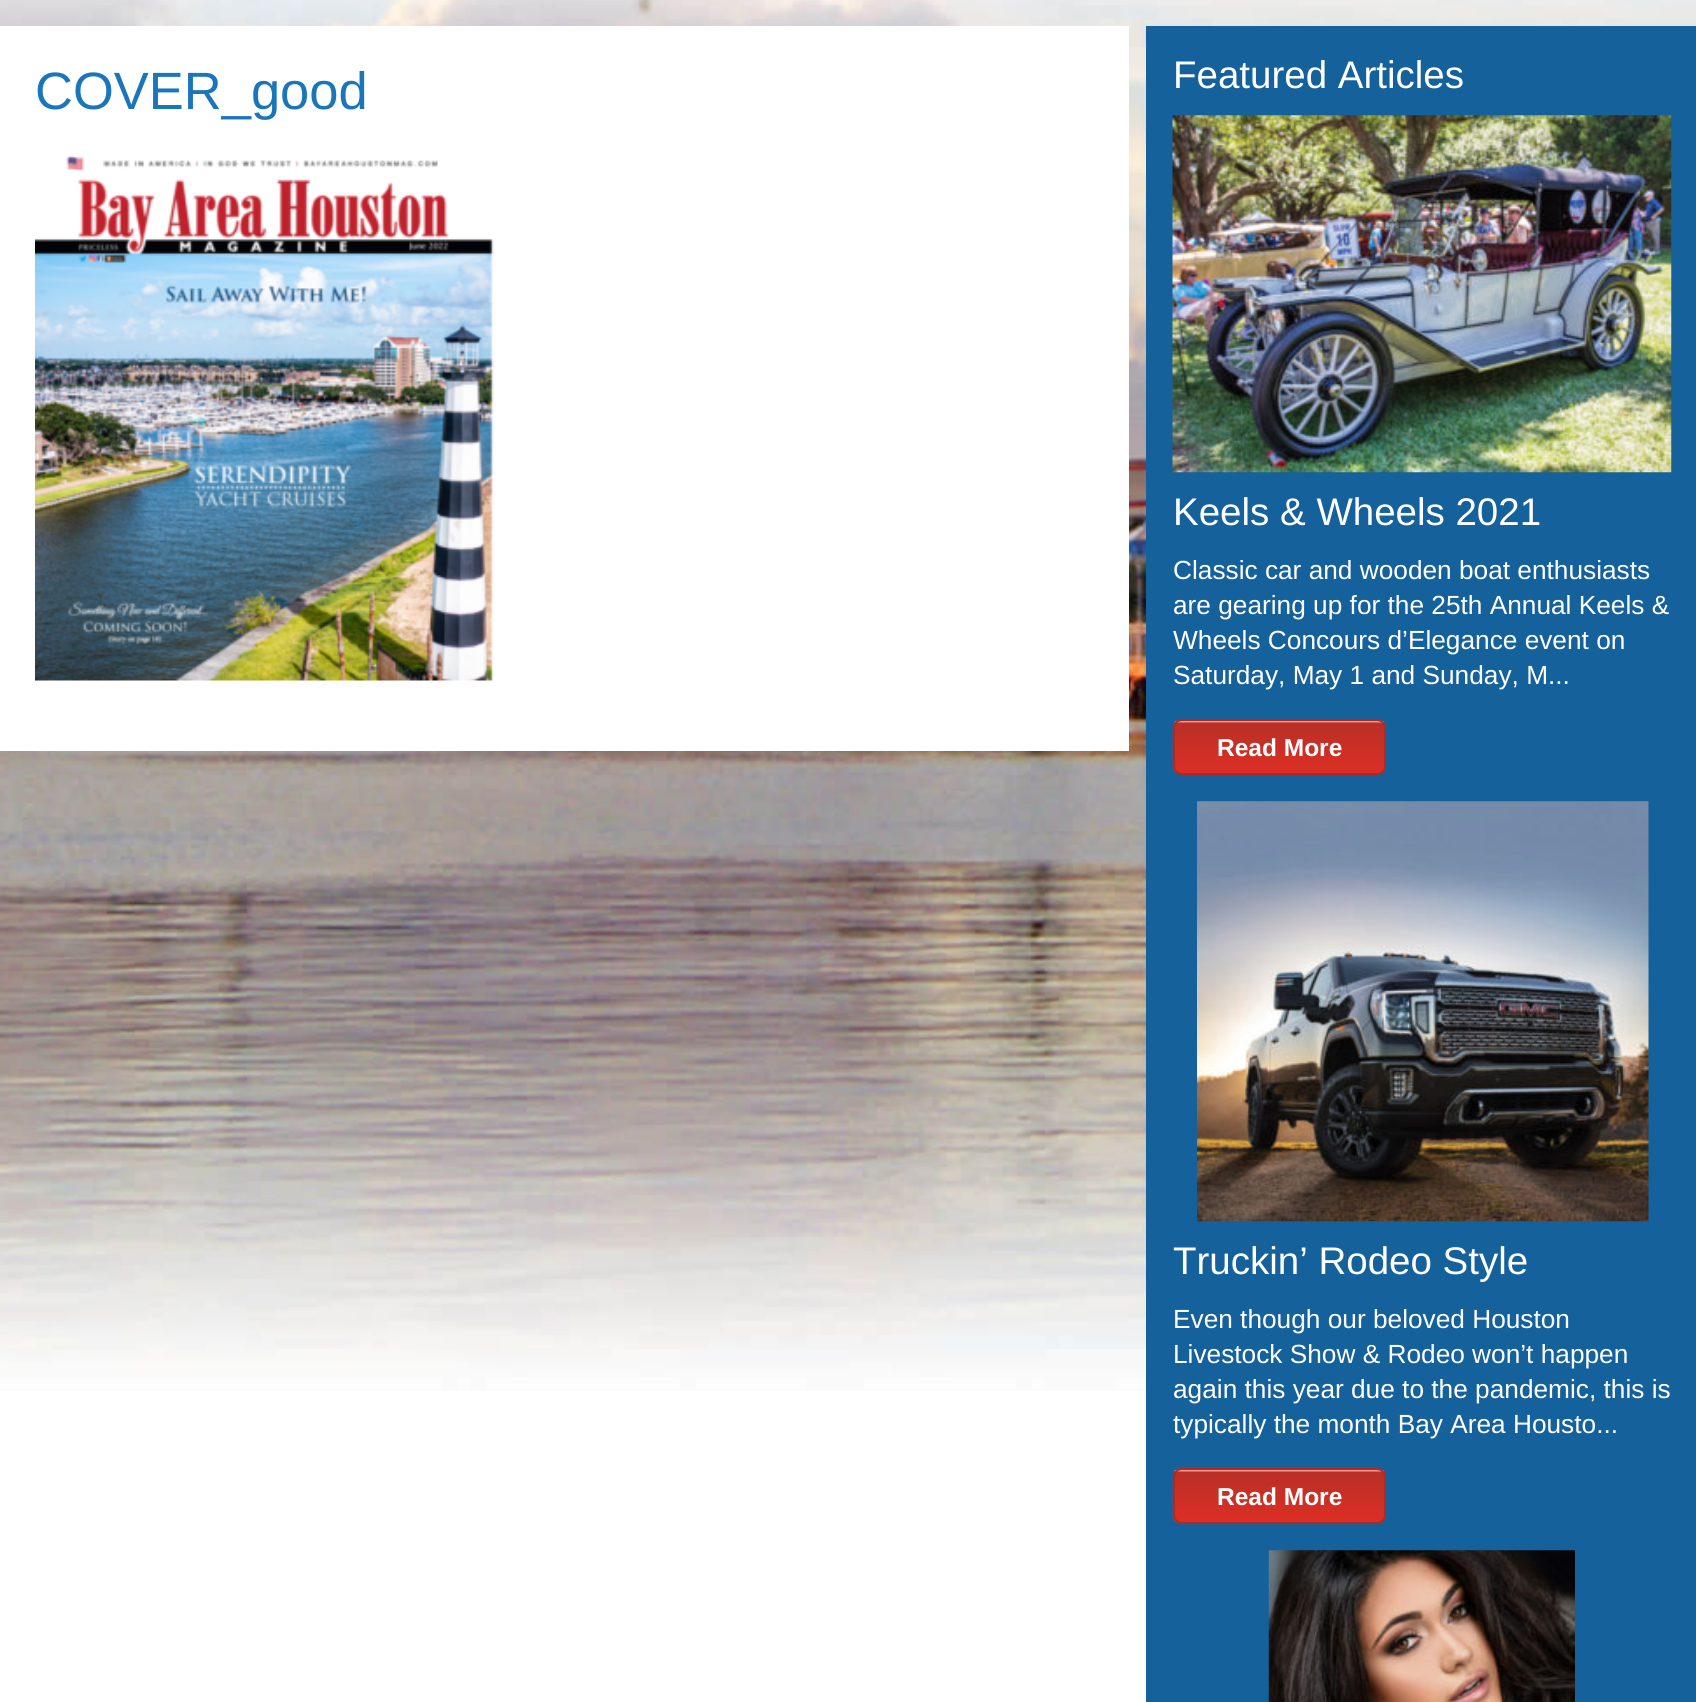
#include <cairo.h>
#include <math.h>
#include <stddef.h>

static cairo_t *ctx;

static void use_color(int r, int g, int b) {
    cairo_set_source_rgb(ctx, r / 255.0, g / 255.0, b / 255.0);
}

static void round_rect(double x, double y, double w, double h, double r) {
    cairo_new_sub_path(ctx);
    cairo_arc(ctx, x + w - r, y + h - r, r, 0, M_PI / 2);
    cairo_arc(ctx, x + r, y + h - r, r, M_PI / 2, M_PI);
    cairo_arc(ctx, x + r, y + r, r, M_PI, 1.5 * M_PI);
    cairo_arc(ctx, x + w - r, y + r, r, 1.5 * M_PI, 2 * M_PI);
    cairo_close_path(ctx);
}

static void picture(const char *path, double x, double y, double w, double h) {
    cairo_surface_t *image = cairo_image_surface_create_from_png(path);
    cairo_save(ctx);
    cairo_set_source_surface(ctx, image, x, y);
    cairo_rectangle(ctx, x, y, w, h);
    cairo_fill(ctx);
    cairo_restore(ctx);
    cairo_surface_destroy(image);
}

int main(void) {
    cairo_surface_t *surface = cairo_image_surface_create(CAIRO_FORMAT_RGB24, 1696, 1702);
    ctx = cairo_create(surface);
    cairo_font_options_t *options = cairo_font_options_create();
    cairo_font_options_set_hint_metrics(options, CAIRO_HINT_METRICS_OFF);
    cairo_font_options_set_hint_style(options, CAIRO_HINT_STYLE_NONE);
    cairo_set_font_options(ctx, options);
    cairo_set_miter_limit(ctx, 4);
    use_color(255, 255, 255);
    cairo_paint(ctx);
    picture("img1.png", 0, 0, 1696, 1391);
    use_color(255, 255, 255);
    cairo_rectangle(ctx, 0, 26, 1129, 725);
    cairo_fill(ctx);
    cairo_select_font_face(ctx, "Liberation Sans", CAIRO_FONT_SLANT_NORMAL, CAIRO_FONT_WEIGHT_NORMAL);
    cairo_set_font_size(ctx, 52.5);
    use_color(26, 117, 187);
    cairo_move_to(ctx, 35, 109);
    cairo_show_text(ctx, "COVER_good");
    picture("img2.png", 35, 155, 459, 526);
    use_color(20, 97, 156);
    cairo_rectangle(ctx, 1146, 26, 550, 1676);
    cairo_fill(ctx);
    cairo_set_font_size(ctx, 38.5);
    use_color(255, 255, 255);
    cairo_move_to(ctx, 1173, 88);
    cairo_show_text(ctx, "Featured Articles");
    picture("img3.png", 1172, 115, 500, 358);
    cairo_move_to(ctx, 1173, 525);
    cairo_show_text(ctx, "Keels & Wheels 2021");
    cairo_set_font_size(ctx, 26.25);
    cairo_move_to(ctx, 1173, 579);
    cairo_show_text(ctx, "Classic car and wooden boat enthusiasts");
    cairo_move_to(ctx, 1173, 614);
    cairo_show_text(ctx, "are gearing up for the 25th Annual Keels &");
    cairo_move_to(ctx, 1173, 649);
    cairo_show_text(ctx, "Wheels Concours d’Elegance event on");
    cairo_move_to(ctx, 1173, 684);
    cairo_show_text(ctx, "Saturday, May 1 and Sunday, M...");
    picture("img4.png", 1172, 720, 214, 54);
    round_rect(1174, 720, 211, 54, 8);
    use_color(176, 42, 34);
    cairo_stroke(ctx);
    cairo_select_font_face(ctx, "Liberation Sans", CAIRO_FONT_SLANT_NORMAL, CAIRO_FONT_WEIGHT_BOLD);
    cairo_set_font_size(ctx, 24.5);
    use_color(255, 255, 255);
    cairo_move_to(ctx, 1217, 756);
    cairo_show_text(ctx, "Read More");
    picture("img5.png", 1197, 801, 452, 421);
    cairo_select_font_face(ctx, "Liberation Sans", CAIRO_FONT_SLANT_NORMAL, CAIRO_FONT_WEIGHT_NORMAL);
    cairo_set_font_size(ctx, 38.5);
    cairo_move_to(ctx, 1173, 1274);
    cairo_show_text(ctx, "Truckin’ Rodeo Style");
    cairo_set_font_size(ctx, 26.25);
    cairo_move_to(ctx, 1173, 1328);
    cairo_show_text(ctx, "Even though our beloved Houston");
    cairo_move_to(ctx, 1173, 1363);
    cairo_show_text(ctx, "Livestock Show & Rodeo won’t happen");
    cairo_move_to(ctx, 1173, 1398);
    cairo_show_text(ctx, "again this year due to the pandemic, this is");
    cairo_move_to(ctx, 1173, 1433);
    cairo_show_text(ctx, "typically the month Bay Area Housto...");
    picture("img4.png", 1172, 1469, 214, 54);
    round_rect(1174, 1469, 211, 54, 8);
    use_color(176, 42, 34);
    cairo_stroke(ctx);
    cairo_select_font_face(ctx, "Liberation Sans", CAIRO_FONT_SLANT_NORMAL, CAIRO_FONT_WEIGHT_BOLD);
    cairo_set_font_size(ctx, 24.5);
    use_color(255, 255, 255);
    cairo_move_to(ctx, 1217, 1505);
    cairo_show_text(ctx, "Read More");
    picture("img6.png", 1268, 1550, 307, 152);
    cairo_surface_write_to_png(surface, "result.png");
    cairo_font_options_destroy(options);
    cairo_destroy(ctx);
    cairo_surface_destroy(surface);
    return 0;
}
